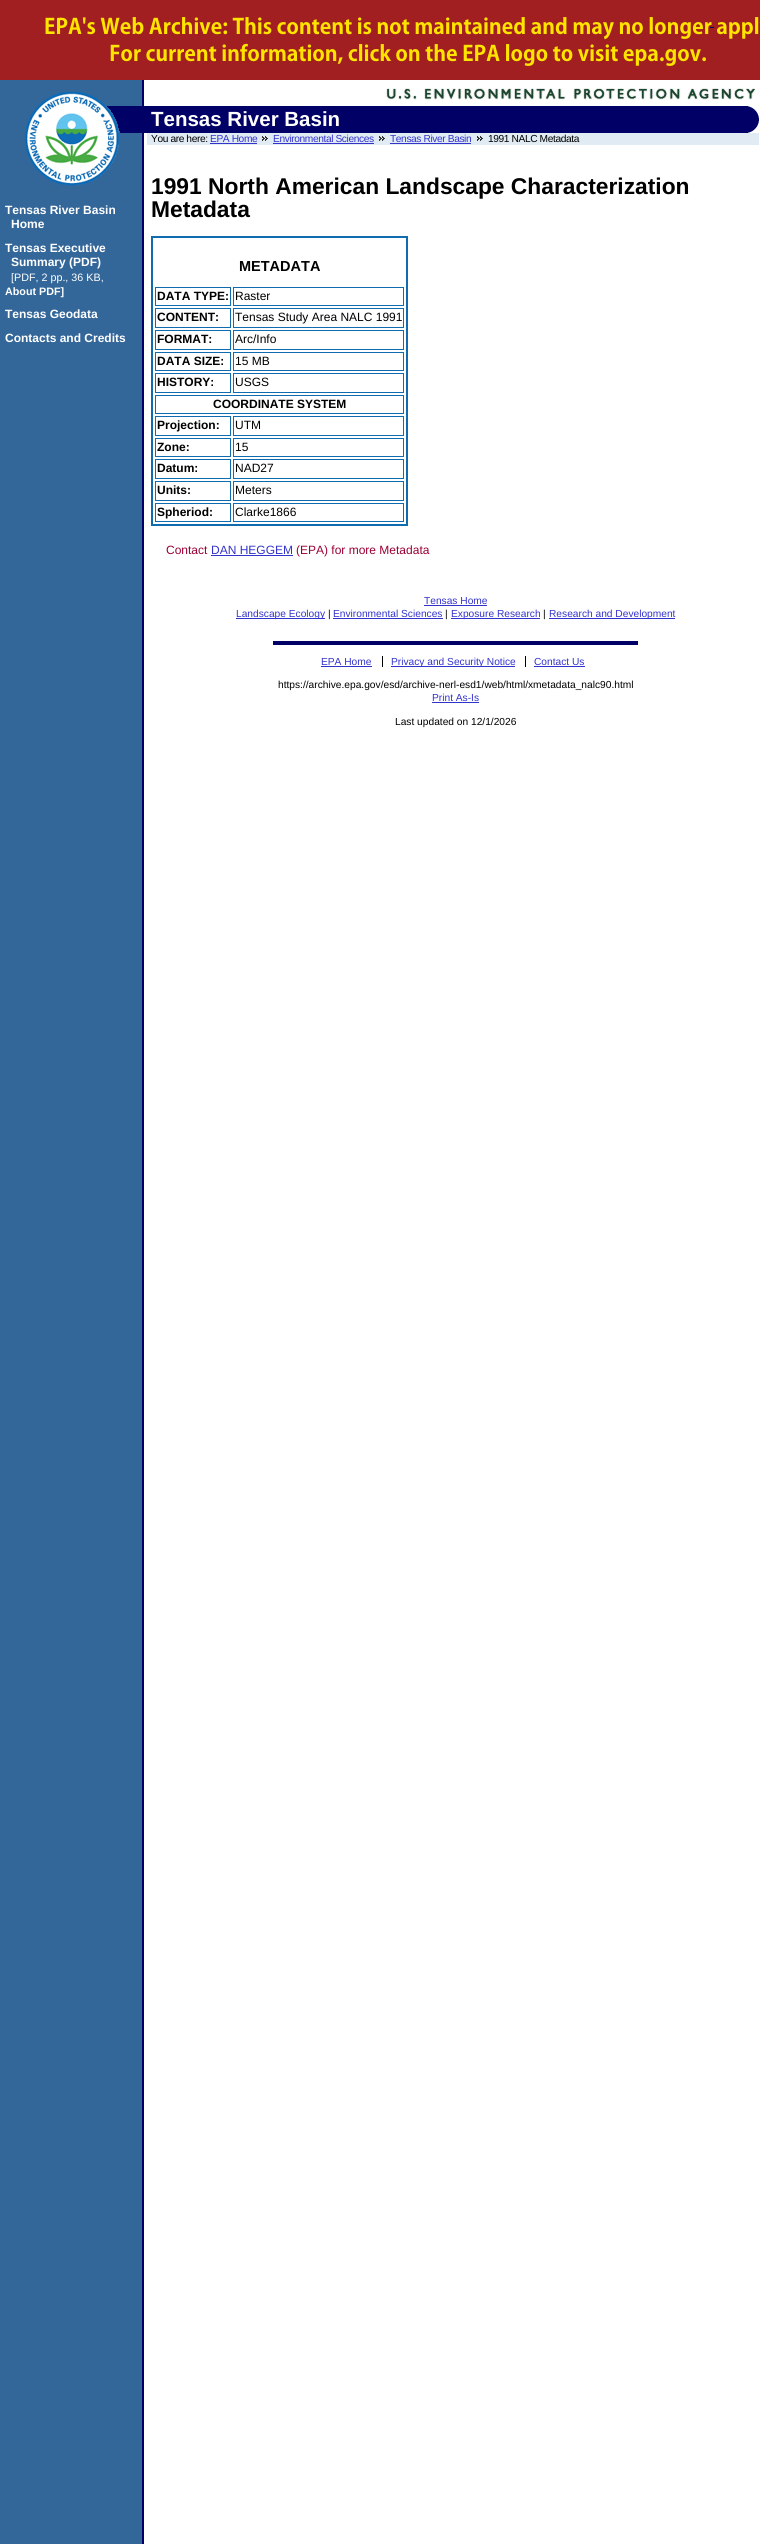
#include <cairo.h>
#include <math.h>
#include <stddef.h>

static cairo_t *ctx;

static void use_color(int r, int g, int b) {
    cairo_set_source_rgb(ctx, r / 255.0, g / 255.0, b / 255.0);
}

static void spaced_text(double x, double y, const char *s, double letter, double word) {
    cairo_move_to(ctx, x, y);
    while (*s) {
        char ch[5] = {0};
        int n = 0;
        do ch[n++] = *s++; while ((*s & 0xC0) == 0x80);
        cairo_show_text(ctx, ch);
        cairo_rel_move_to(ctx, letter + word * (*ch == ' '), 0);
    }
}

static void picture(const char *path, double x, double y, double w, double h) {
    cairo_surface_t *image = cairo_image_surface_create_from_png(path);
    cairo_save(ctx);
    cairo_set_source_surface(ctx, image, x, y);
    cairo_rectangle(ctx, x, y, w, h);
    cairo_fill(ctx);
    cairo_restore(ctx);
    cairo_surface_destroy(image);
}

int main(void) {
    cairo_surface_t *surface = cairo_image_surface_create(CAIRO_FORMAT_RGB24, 760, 2544);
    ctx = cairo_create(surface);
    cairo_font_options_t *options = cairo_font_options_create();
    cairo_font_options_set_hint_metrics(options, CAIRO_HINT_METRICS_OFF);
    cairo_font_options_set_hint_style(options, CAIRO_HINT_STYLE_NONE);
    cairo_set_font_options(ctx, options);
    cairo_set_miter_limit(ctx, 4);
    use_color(255, 255, 255);
    cairo_paint(ctx);
    picture("img1.png", 0, 80, 144, 2464);
    use_color(161, 31, 32);
    cairo_rectangle(ctx, 0, 0, 760, 80);
    cairo_fill(ctx);
    picture("img2.png", 45, 17, 715, 49);
    picture("img3.png", 386, 88, 370, 15);
    use_color(0, 0, 102);
    cairo_rectangle(ctx, 107, 106, 652, 27);
    cairo_fill(ctx);
    picture("img4.png", 25, 92, 95, 94);
    picture("img5.png", 748, 106, 11, 12);
    picture("img6.png", 748, 121, 11, 12);
    cairo_select_font_face(ctx, "Liberation Sans", CAIRO_FONT_SLANT_NORMAL, CAIRO_FONT_WEIGHT_BOLD);
    cairo_set_font_size(ctx, 20.5);
    use_color(255, 255, 255);
    cairo_move_to(ctx, 151, 126);
    cairo_show_text(ctx, "Tensas River Basin");
    use_color(225, 235, 244);
    cairo_rectangle(ctx, 147, 133, 612, 12);
    cairo_fill(ctx);
    cairo_select_font_face(ctx, "Liberation Sans", CAIRO_FONT_SLANT_NORMAL, CAIRO_FONT_WEIGHT_NORMAL);
    cairo_set_font_size(ctx, 10.2);
    use_color(0, 0, 0);
    spaced_text(151, 142, "You are here:", -0.4, 0);
    use_color(51, 51, 204);
    spaced_text(210, 142, "EPA Home", -0.4, 0);
    cairo_rectangle(ctx, 210, 143, 47, 1);
    cairo_fill(ctx);
    picture("img7.png", 262, 136, 6, 5);
    spaced_text(273, 142, "Environmental Sciences", -0.4, 0);
    cairo_rectangle(ctx, 273, 143, 101, 1);
    cairo_fill(ctx);
    picture("img7.png", 379, 136, 6, 5);
    spaced_text(390, 142, "Tensas River Basin", -0.4, 0);
    cairo_rectangle(ctx, 390, 143, 81, 1);
    cairo_fill(ctx);
    picture("img7.png", 477, 136, 6, 5);
    use_color(0, 0, 0);
    spaced_text(488, 142, "1991 NALC Metadata", -0.4, 0);
    cairo_select_font_face(ctx, "Liberation Sans", CAIRO_FONT_SLANT_NORMAL, CAIRO_FONT_WEIGHT_BOLD);
    cairo_set_font_size(ctx, 12);
    use_color(255, 255, 255);
    cairo_move_to(ctx, 5, 214);
    cairo_show_text(ctx, "Tensas River Basin");
    cairo_move_to(ctx, 11, 228);
    cairo_show_text(ctx, "Home");
    cairo_move_to(ctx, 5, 252);
    cairo_show_text(ctx, "Tensas Executive");
    cairo_move_to(ctx, 11, 266);
    cairo_show_text(ctx, "Summary (PDF)");
    cairo_select_font_face(ctx, "Liberation Sans", CAIRO_FONT_SLANT_NORMAL, CAIRO_FONT_WEIGHT_NORMAL);
    cairo_set_font_size(ctx, 10.75);
    cairo_move_to(ctx, 11, 281);
    cairo_show_text(ctx, "[PDF, 2 pp., 36 KB,");
    cairo_select_font_face(ctx, "Liberation Sans", CAIRO_FONT_SLANT_NORMAL, CAIRO_FONT_WEIGHT_BOLD);
    cairo_move_to(ctx, 5, 295);
    cairo_show_text(ctx, "About PDF]");
    cairo_set_font_size(ctx, 12);
    cairo_move_to(ctx, 5, 318);
    cairo_show_text(ctx, "Tensas Geodata");
    cairo_move_to(ctx, 5, 342);
    cairo_show_text(ctx, "Contacts and Credits");
    cairo_set_font_size(ctx, 22.8);
    use_color(0, 0, 0);
    cairo_move_to(ctx, 151, 194);
    cairo_show_text(ctx, "1991 North American Landscape Characterization");
    cairo_move_to(ctx, 151, 217);
    cairo_show_text(ctx, "Metadata");
    cairo_rectangle(ctx, 152, 237, 255, 288);
    use_color(16, 107, 175);
    cairo_stroke(ctx);
    cairo_set_font_size(ctx, 14.5);
    use_color(0, 0, 0);
    cairo_move_to(ctx, 239, 271);
    cairo_show_text(ctx, "METADATA");
    cairo_rectangle(ctx, 155.5, 287.5, 75, 18);
    use_color(16, 107, 175);
    cairo_set_line_width(ctx, 1);
    cairo_stroke(ctx);
    cairo_set_font_size(ctx, 12);
    use_color(0, 0, 0);
    cairo_move_to(ctx, 157, 300);
    cairo_show_text(ctx, "DATA TYPE:");
    cairo_rectangle(ctx, 233.5, 287.5, 170, 18);
    use_color(16, 107, 175);
    cairo_stroke(ctx);
    cairo_select_font_face(ctx, "Liberation Sans", CAIRO_FONT_SLANT_NORMAL, CAIRO_FONT_WEIGHT_NORMAL);
    use_color(0, 0, 0);
    cairo_move_to(ctx, 235, 300);
    cairo_show_text(ctx, "Raster");
    cairo_rectangle(ctx, 155.5, 308.5, 75, 19);
    use_color(16, 107, 175);
    cairo_stroke(ctx);
    cairo_select_font_face(ctx, "Liberation Sans", CAIRO_FONT_SLANT_NORMAL, CAIRO_FONT_WEIGHT_BOLD);
    use_color(0, 0, 0);
    cairo_move_to(ctx, 157, 321);
    cairo_show_text(ctx, "CONTENT:");
    cairo_rectangle(ctx, 233.5, 308.5, 170, 19);
    use_color(16, 107, 175);
    cairo_stroke(ctx);
    cairo_select_font_face(ctx, "Liberation Sans", CAIRO_FONT_SLANT_NORMAL, CAIRO_FONT_WEIGHT_NORMAL);
    use_color(0, 0, 0);
    cairo_move_to(ctx, 235, 321);
    cairo_show_text(ctx, "Tensas Study Area NALC 1991");
    cairo_rectangle(ctx, 155.5, 330.5, 75, 19);
    use_color(16, 107, 175);
    cairo_stroke(ctx);
    cairo_select_font_face(ctx, "Liberation Sans", CAIRO_FONT_SLANT_NORMAL, CAIRO_FONT_WEIGHT_BOLD);
    use_color(0, 0, 0);
    cairo_move_to(ctx, 157, 343);
    cairo_show_text(ctx, "FORMAT:");
    cairo_rectangle(ctx, 233.5, 330.5, 170, 19);
    use_color(16, 107, 175);
    cairo_stroke(ctx);
    cairo_select_font_face(ctx, "Liberation Sans", CAIRO_FONT_SLANT_NORMAL, CAIRO_FONT_WEIGHT_NORMAL);
    use_color(0, 0, 0);
    cairo_move_to(ctx, 235, 343);
    cairo_show_text(ctx, "Arc/Info");
    cairo_rectangle(ctx, 155.5, 352.5, 75, 18);
    use_color(16, 107, 175);
    cairo_stroke(ctx);
    cairo_select_font_face(ctx, "Liberation Sans", CAIRO_FONT_SLANT_NORMAL, CAIRO_FONT_WEIGHT_BOLD);
    use_color(0, 0, 0);
    cairo_move_to(ctx, 157, 365);
    cairo_show_text(ctx, "DATA SIZE:");
    cairo_rectangle(ctx, 233.5, 352.5, 170, 18);
    use_color(16, 107, 175);
    cairo_stroke(ctx);
    cairo_select_font_face(ctx, "Liberation Sans", CAIRO_FONT_SLANT_NORMAL, CAIRO_FONT_WEIGHT_NORMAL);
    use_color(0, 0, 0);
    cairo_move_to(ctx, 235, 365);
    cairo_show_text(ctx, "15 MB");
    cairo_rectangle(ctx, 155.5, 373.5, 75, 19);
    use_color(16, 107, 175);
    cairo_stroke(ctx);
    cairo_select_font_face(ctx, "Liberation Sans", CAIRO_FONT_SLANT_NORMAL, CAIRO_FONT_WEIGHT_BOLD);
    use_color(0, 0, 0);
    cairo_move_to(ctx, 157, 386);
    cairo_show_text(ctx, "HISTORY:");
    cairo_rectangle(ctx, 233.5, 373.5, 170, 19);
    use_color(16, 107, 175);
    cairo_stroke(ctx);
    cairo_select_font_face(ctx, "Liberation Sans", CAIRO_FONT_SLANT_NORMAL, CAIRO_FONT_WEIGHT_NORMAL);
    use_color(0, 0, 0);
    cairo_move_to(ctx, 235, 386);
    cairo_show_text(ctx, "USGS");
    cairo_rectangle(ctx, 155.5, 395.5, 248, 18);
    use_color(16, 107, 175);
    cairo_stroke(ctx);
    cairo_select_font_face(ctx, "Liberation Sans", CAIRO_FONT_SLANT_NORMAL, CAIRO_FONT_WEIGHT_BOLD);
    use_color(0, 0, 0);
    cairo_move_to(ctx, 213, 408);
    cairo_show_text(ctx, "COORDINATE SYSTEM");
    cairo_rectangle(ctx, 155.5, 416.5, 75, 19);
    use_color(16, 107, 175);
    cairo_stroke(ctx);
    use_color(0, 0, 0);
    cairo_move_to(ctx, 157, 429);
    cairo_show_text(ctx, "Projection:");
    cairo_rectangle(ctx, 233.5, 416.5, 170, 19);
    use_color(16, 107, 175);
    cairo_stroke(ctx);
    cairo_select_font_face(ctx, "Liberation Sans", CAIRO_FONT_SLANT_NORMAL, CAIRO_FONT_WEIGHT_NORMAL);
    use_color(0, 0, 0);
    cairo_move_to(ctx, 235, 429);
    cairo_show_text(ctx, "UTM");
    cairo_rectangle(ctx, 155.5, 438.5, 75, 18);
    use_color(16, 107, 175);
    cairo_stroke(ctx);
    cairo_select_font_face(ctx, "Liberation Sans", CAIRO_FONT_SLANT_NORMAL, CAIRO_FONT_WEIGHT_BOLD);
    use_color(0, 0, 0);
    cairo_move_to(ctx, 157, 451);
    cairo_show_text(ctx, "Zone:");
    cairo_rectangle(ctx, 233.5, 438.5, 170, 18);
    use_color(16, 107, 175);
    cairo_stroke(ctx);
    cairo_select_font_face(ctx, "Liberation Sans", CAIRO_FONT_SLANT_NORMAL, CAIRO_FONT_WEIGHT_NORMAL);
    use_color(0, 0, 0);
    cairo_move_to(ctx, 235, 451);
    cairo_show_text(ctx, "15");
    cairo_rectangle(ctx, 155.5, 459.5, 75, 19);
    use_color(16, 107, 175);
    cairo_stroke(ctx);
    cairo_select_font_face(ctx, "Liberation Sans", CAIRO_FONT_SLANT_NORMAL, CAIRO_FONT_WEIGHT_BOLD);
    use_color(0, 0, 0);
    cairo_move_to(ctx, 157, 472);
    cairo_show_text(ctx, "Datum:");
    cairo_rectangle(ctx, 233.5, 459.5, 170, 19);
    use_color(16, 107, 175);
    cairo_stroke(ctx);
    cairo_select_font_face(ctx, "Liberation Sans", CAIRO_FONT_SLANT_NORMAL, CAIRO_FONT_WEIGHT_NORMAL);
    use_color(0, 0, 0);
    cairo_move_to(ctx, 235, 472);
    cairo_show_text(ctx, "NAD27");
    cairo_rectangle(ctx, 155.5, 481.5, 75, 19);
    use_color(16, 107, 175);
    cairo_stroke(ctx);
    cairo_select_font_face(ctx, "Liberation Sans", CAIRO_FONT_SLANT_NORMAL, CAIRO_FONT_WEIGHT_BOLD);
    use_color(0, 0, 0);
    cairo_move_to(ctx, 157, 494);
    cairo_show_text(ctx, "Units:");
    cairo_rectangle(ctx, 233.5, 481.5, 170, 19);
    use_color(16, 107, 175);
    cairo_stroke(ctx);
    cairo_select_font_face(ctx, "Liberation Sans", CAIRO_FONT_SLANT_NORMAL, CAIRO_FONT_WEIGHT_NORMAL);
    use_color(0, 0, 0);
    cairo_move_to(ctx, 235, 494);
    cairo_show_text(ctx, "Meters");
    cairo_rectangle(ctx, 155.5, 503.5, 75, 18);
    use_color(16, 107, 175);
    cairo_stroke(ctx);
    cairo_select_font_face(ctx, "Liberation Sans", CAIRO_FONT_SLANT_NORMAL, CAIRO_FONT_WEIGHT_BOLD);
    use_color(0, 0, 0);
    cairo_move_to(ctx, 157, 516);
    cairo_show_text(ctx, "Spheriod:");
    cairo_rectangle(ctx, 233.5, 503.5, 170, 18);
    use_color(16, 107, 175);
    cairo_stroke(ctx);
    cairo_select_font_face(ctx, "Liberation Sans", CAIRO_FONT_SLANT_NORMAL, CAIRO_FONT_WEIGHT_NORMAL);
    use_color(0, 0, 0);
    cairo_move_to(ctx, 235, 516);
    cairo_show_text(ctx, "Clarke1866");
    use_color(153, 0, 51);
    cairo_move_to(ctx, 166, 554);
    cairo_show_text(ctx, "Contact");
    use_color(51, 51, 204);
    cairo_move_to(ctx, 211, 554);
    cairo_show_text(ctx, "DAN HEGGEM");
    cairo_rectangle(ctx, 211, 555, 82, 1);
    cairo_fill(ctx);
    use_color(153, 0, 51);
    cairo_move_to(ctx, 296, 554);
    cairo_show_text(ctx, "(EPA) for more Metadata");
    cairo_set_font_size(ctx, 10.2);
    use_color(51, 51, 204);
    cairo_move_to(ctx, 424, 604);
    cairo_show_text(ctx, "Tensas Home");
    cairo_rectangle(ctx, 424, 605, 63, 1);
    cairo_fill(ctx);
    cairo_rectangle(ctx, 236, 618, 89, 1);
    cairo_fill(ctx);
    cairo_move_to(ctx, 236, 617);
    cairo_show_text(ctx, "Landscape Ecology");
    use_color(0, 0, 0);
    cairo_move_to(ctx, 328, 617);
    cairo_show_text(ctx, "|");
    use_color(51, 51, 204);
    cairo_move_to(ctx, 333, 617);
    cairo_show_text(ctx, "Environmental Sciences");
    cairo_rectangle(ctx, 333, 618, 110, 1);
    cairo_fill(ctx);
    use_color(0, 0, 0);
    cairo_move_to(ctx, 445, 617);
    cairo_show_text(ctx, "|");
    use_color(51, 51, 204);
    cairo_rectangle(ctx, 451, 618, 89, 1);
    cairo_fill(ctx);
    cairo_move_to(ctx, 451, 617);
    cairo_show_text(ctx, "Exposure Research");
    use_color(0, 0, 0);
    cairo_move_to(ctx, 543, 617);
    cairo_show_text(ctx, "|");
    use_color(51, 51, 204);
    cairo_rectangle(ctx, 549, 618, 126, 1);
    cairo_fill(ctx);
    cairo_move_to(ctx, 549, 617);
    cairo_show_text(ctx, "Research and Development");
    use_color(0, 0, 102);
    cairo_rectangle(ctx, 710, 27, 4, 1);
    cairo_fill(ctx);
    cairo_rectangle(ctx, 273, 641, 365, 4);
    cairo_fill(ctx);
    use_color(51, 51, 204);
    cairo_move_to(ctx, 321, 665);
    cairo_show_text(ctx, "EPA Home");
    use_color(0, 0, 0);
    cairo_rectangle(ctx, 382, 656, 1, 11);
    cairo_fill(ctx);
    use_color(51, 51, 204);
    cairo_rectangle(ctx, 321, 666, 51, 1);
    cairo_fill(ctx);
    cairo_rectangle(ctx, 391, 666, 124, 1);
    cairo_fill(ctx);
    cairo_move_to(ctx, 391, 665);
    cairo_show_text(ctx, "Privacy and Security Notice");
    use_color(0, 0, 0);
    cairo_rectangle(ctx, 525, 656, 1, 11);
    cairo_fill(ctx);
    use_color(51, 51, 204);
    cairo_move_to(ctx, 534, 665);
    cairo_show_text(ctx, "Contact Us");
    cairo_rectangle(ctx, 534, 666, 51, 1);
    cairo_fill(ctx);
    use_color(0, 0, 0);
    cairo_move_to(ctx, 278, 688);
    cairo_show_text(ctx, "https://archive.epa.gov/esd/archive-nerl-esd1/web/html/xmetadata_nalc90.html");
    use_color(51, 51, 204);
    cairo_move_to(ctx, 432, 701);
    cairo_show_text(ctx, "Print As-Is");
    cairo_rectangle(ctx, 432, 702, 47, 1);
    cairo_fill(ctx);
    use_color(0, 0, 0);
    cairo_move_to(ctx, 395, 725);
    cairo_show_text(ctx, "Last updated on 12/1/2026");
    cairo_surface_write_to_png(surface, "result.png");
    cairo_font_options_destroy(options);
    cairo_destroy(ctx);
    cairo_surface_destroy(surface);
    return 0;
}
